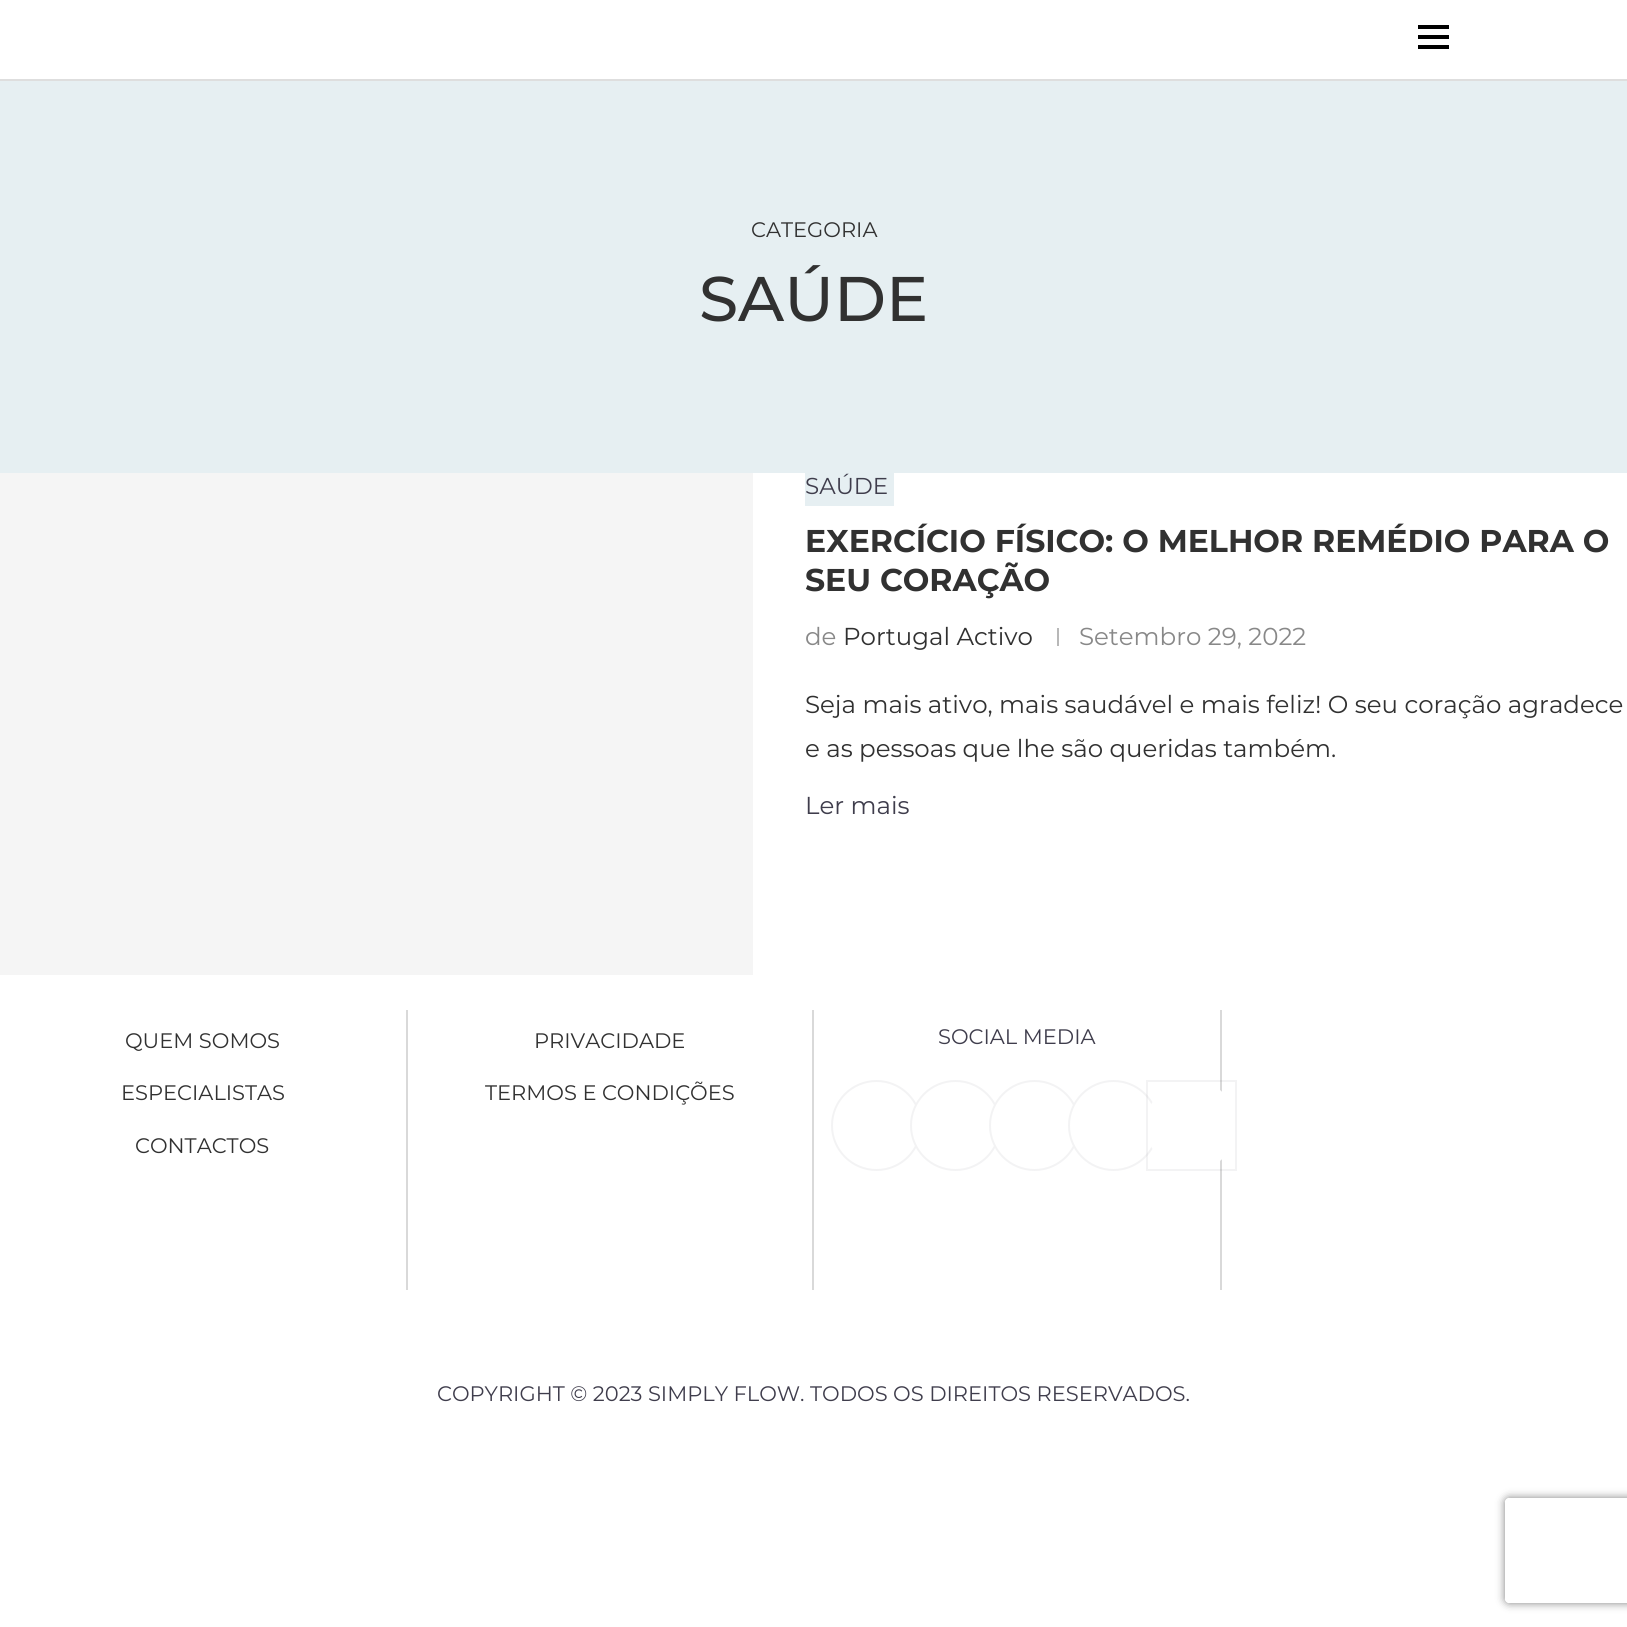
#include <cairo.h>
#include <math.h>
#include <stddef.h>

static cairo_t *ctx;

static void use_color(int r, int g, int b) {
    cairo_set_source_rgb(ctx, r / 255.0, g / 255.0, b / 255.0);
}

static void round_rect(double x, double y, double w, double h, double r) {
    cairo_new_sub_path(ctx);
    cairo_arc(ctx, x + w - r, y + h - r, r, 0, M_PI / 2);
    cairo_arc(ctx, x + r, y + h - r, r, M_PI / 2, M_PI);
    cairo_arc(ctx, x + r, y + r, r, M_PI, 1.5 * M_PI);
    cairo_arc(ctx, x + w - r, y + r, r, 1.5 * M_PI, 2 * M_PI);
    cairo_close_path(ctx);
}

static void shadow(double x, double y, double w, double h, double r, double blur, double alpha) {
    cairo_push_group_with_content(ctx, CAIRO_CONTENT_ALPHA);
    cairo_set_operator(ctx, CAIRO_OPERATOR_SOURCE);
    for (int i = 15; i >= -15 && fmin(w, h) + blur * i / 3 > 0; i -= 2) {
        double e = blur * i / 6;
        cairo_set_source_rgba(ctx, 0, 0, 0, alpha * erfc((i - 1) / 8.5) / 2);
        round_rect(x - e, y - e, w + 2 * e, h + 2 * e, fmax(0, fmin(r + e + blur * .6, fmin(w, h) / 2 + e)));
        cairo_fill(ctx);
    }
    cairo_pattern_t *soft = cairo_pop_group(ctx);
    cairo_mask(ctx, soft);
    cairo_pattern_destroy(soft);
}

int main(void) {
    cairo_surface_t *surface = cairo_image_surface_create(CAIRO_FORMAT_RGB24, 1627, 1627);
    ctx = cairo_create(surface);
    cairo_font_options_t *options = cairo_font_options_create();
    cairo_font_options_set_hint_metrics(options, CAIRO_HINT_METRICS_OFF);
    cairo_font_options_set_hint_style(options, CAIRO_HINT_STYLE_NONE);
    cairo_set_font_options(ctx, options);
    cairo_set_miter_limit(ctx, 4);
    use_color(255, 255, 255);
    cairo_paint(ctx);
    use_color(222, 222, 222);
    cairo_rectangle(ctx, 0, 79, 1627, 2);
    cairo_fill(ctx);
    use_color(0, 0, 0);
    cairo_rectangle(ctx, 1418, 25, 31, 4);
    cairo_fill(ctx);
    cairo_rectangle(ctx, 1418, 35, 31, 4);
    cairo_fill(ctx);
    cairo_rectangle(ctx, 1418, 45, 31, 4);
    cairo_fill(ctx);
    use_color(230, 239, 242);
    cairo_rectangle(ctx, 0, 81, 1627, 392);
    cairo_fill(ctx);
    cairo_select_font_face(ctx, "Montserrat", CAIRO_FONT_SLANT_NORMAL, CAIRO_FONT_WEIGHT_NORMAL);
    cairo_set_font_size(ctx, 21);
    use_color(49, 49, 49);
    cairo_move_to(ctx, 751, 237);
    cairo_show_text(ctx, "CATEGORIA");
    cairo_select_font_face(ctx, "Montserrat Medium", CAIRO_FONT_SLANT_NORMAL, CAIRO_FONT_WEIGHT_NORMAL);
    cairo_set_font_size(ctx, 63);
    cairo_move_to(ctx, 699, 321);
    cairo_show_text(ctx, "SAÚDE");
    use_color(245, 245, 245);
    cairo_rectangle(ctx, 0, 473, 753, 502);
    cairo_fill(ctx);
    use_color(230, 239, 242);
    cairo_rectangle(ctx, 805, 473, 89, 33);
    cairo_fill(ctx);
    cairo_select_font_face(ctx, "Montserrat", CAIRO_FONT_SLANT_NORMAL, CAIRO_FONT_WEIGHT_NORMAL);
    cairo_set_font_size(ctx, 23);
    use_color(63, 61, 76);
    cairo_move_to(ctx, 805, 494);
    cairo_show_text(ctx, "SAÚDE");
    cairo_select_font_face(ctx, "Montserrat", CAIRO_FONT_SLANT_NORMAL, CAIRO_FONT_WEIGHT_BOLD);
    cairo_set_font_size(ctx, 31.5);
    use_color(49, 49, 49);
    cairo_move_to(ctx, 805, 552);
    cairo_show_text(ctx, "EXERCÍCIO FÍSICO: O MELHOR REMÉDIO PARA O");
    cairo_move_to(ctx, 805, 591);
    cairo_show_text(ctx, "SEU CORAÇÃO");
    cairo_select_font_face(ctx, "Montserrat", CAIRO_FONT_SLANT_NORMAL, CAIRO_FONT_WEIGHT_NORMAL);
    cairo_set_font_size(ctx, 24.5);
    use_color(136, 136, 136);
    cairo_move_to(ctx, 805, 645);
    cairo_show_text(ctx, "de");
    use_color(49, 49, 49);
    cairo_move_to(ctx, 843, 645);
    cairo_show_text(ctx, "Portugal Activo");
    use_color(184, 184, 184);
    cairo_rectangle(ctx, 1057, 628, 2, 18);
    cairo_fill(ctx);
    use_color(136, 136, 136);
    cairo_move_to(ctx, 1079, 645);
    cairo_show_text(ctx, "Setembro 29, 2022");
    use_color(49, 49, 49);
    cairo_move_to(ctx, 805, 713);
    cairo_show_text(ctx, "Seja mais ativo, mais saudável e mais feliz! O seu coração agradece");
    cairo_move_to(ctx, 805, 757);
    cairo_show_text(ctx, "e as pessoas que lhe são queridas também.");
    use_color(63, 61, 76);
    cairo_move_to(ctx, 805, 814);
    cairo_show_text(ctx, "Ler mais");
    use_color(217, 217, 217);
    cairo_rectangle(ctx, 406, 1010, 2, 280);
    cairo_fill(ctx);
    cairo_set_font_size(ctx, 21);
    use_color(49, 49, 49);
    cairo_move_to(ctx, 125, 1048);
    cairo_show_text(ctx, "QUEM SOMOS");
    cairo_move_to(ctx, 121, 1100);
    cairo_show_text(ctx, "ESPECIALISTAS");
    cairo_move_to(ctx, 135, 1153);
    cairo_show_text(ctx, "CONTACTOS");
    use_color(217, 217, 217);
    cairo_rectangle(ctx, 812, 1010, 2, 280);
    cairo_fill(ctx);
    use_color(49, 49, 49);
    cairo_move_to(ctx, 534, 1048);
    cairo_show_text(ctx, "PRIVACIDADE");
    cairo_move_to(ctx, 485, 1100);
    cairo_show_text(ctx, "TERMOS E CONDIÇÕES");
    use_color(217, 217, 217);
    cairo_rectangle(ctx, 1220, 1010, 2, 280);
    cairo_fill(ctx);
    use_color(63, 61, 76);
    cairo_move_to(ctx, 938, 1044);
    cairo_show_text(ctx, "SOCIAL MEDIA");
    cairo_new_path(ctx);
    cairo_arc(ctx, 876.5, 1125.5, 44.5, 0, 2 * M_PI);
    use_color(243, 243, 244);
    cairo_stroke(ctx);
    use_color(255, 255, 255);
    cairo_arc(ctx, 955.5, 1125.5, 44.5, 0, 2 * M_PI);
    cairo_fill_preserve(ctx);
    use_color(243, 243, 244);
    cairo_stroke(ctx);
    use_color(255, 255, 255);
    cairo_arc(ctx, 1034.5, 1125.5, 44.5, 0, 2 * M_PI);
    cairo_fill_preserve(ctx);
    use_color(243, 243, 244);
    cairo_stroke(ctx);
    use_color(255, 255, 255);
    cairo_arc(ctx, 1113.5, 1125.5, 44.5, 0, 2 * M_PI);
    cairo_fill_preserve(ctx);
    use_color(243, 243, 244);
    cairo_stroke(ctx);
    use_color(255, 255, 255);
    cairo_arc(ctx, 1191.5, 1125.5, 45.5, 0, 2 * M_PI);
    cairo_fill(ctx);
    cairo_rectangle(ctx, 1147, 1081, 89, 89);
    cairo_set_source_rgba(ctx, 0.247, 0.239, 0.298, 0.06);
    cairo_stroke(ctx);
    use_color(63, 61, 76);
    cairo_move_to(ctx, 437, 1401);
    cairo_show_text(ctx, "COPYRIGHT © 2023 SIMPLY FLOW. TODOS OS DIREITOS RESERVADOS.");
    cairo_save(ctx);
    cairo_set_fill_rule(ctx, CAIRO_FILL_RULE_EVEN_ODD);
    cairo_new_path(ctx);
    cairo_move_to(ctx, 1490, 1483);
    cairo_line_to(ctx, 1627, 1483);
    cairo_line_to(ctx, 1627, 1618);
    cairo_line_to(ctx, 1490, 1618);
    cairo_close_path(ctx);
    cairo_move_to(ctx, 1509, 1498);
    cairo_line_to(ctx, 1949, 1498);
    cairo_curve_to(ctx, 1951, 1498, 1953, 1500, 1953, 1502);
    cairo_line_to(ctx, 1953, 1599);
    cairo_curve_to(ctx, 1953, 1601, 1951, 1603, 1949, 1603);
    cairo_line_to(ctx, 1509, 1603);
    cairo_curve_to(ctx, 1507, 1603, 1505, 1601, 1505, 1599);
    cairo_line_to(ctx, 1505, 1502);
    cairo_curve_to(ctx, 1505, 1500, 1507, 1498, 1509, 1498);
    cairo_close_path(ctx);
    cairo_clip(ctx);
    use_color(128, 128, 128);
    shadow(1505, 1498, 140, 105, 4, 4.5, 1);
    cairo_restore(ctx);
    cairo_surface_write_to_png(surface, "result.png");
    cairo_font_options_destroy(options);
    cairo_destroy(ctx);
    cairo_surface_destroy(surface);
    return 0;
}
